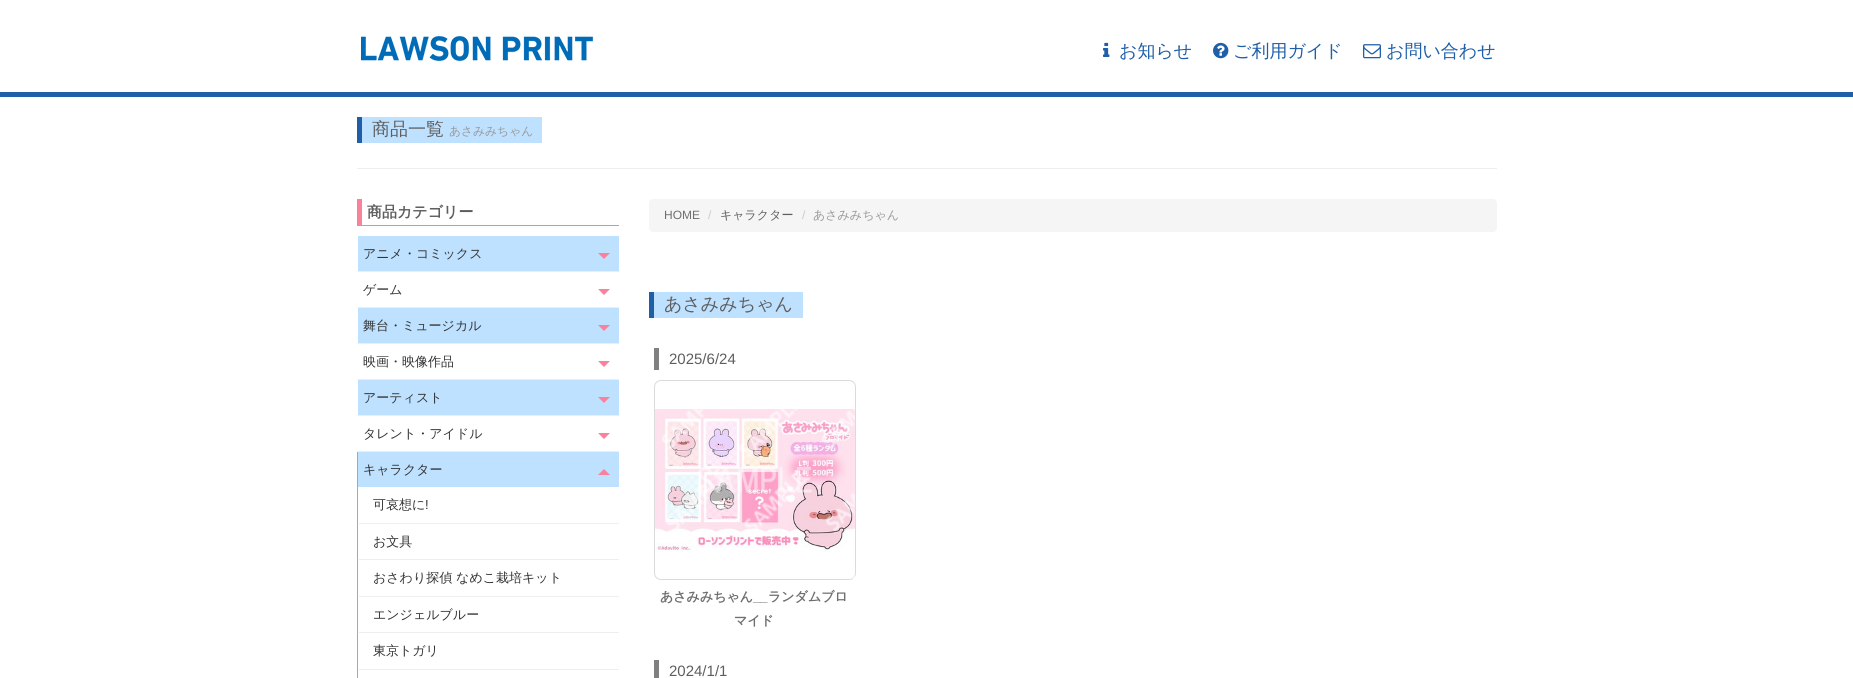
#include <cairo.h>
#include <math.h>
#include <stddef.h>

static cairo_t *ctx;

static void use_color(int r, int g, int b) {
    cairo_set_source_rgb(ctx, r / 255.0, g / 255.0, b / 255.0);
}

static void round_rect(double x, double y, double w, double h, double r) {
    cairo_new_sub_path(ctx);
    cairo_arc(ctx, x + w - r, y + h - r, r, 0, M_PI / 2);
    cairo_arc(ctx, x + r, y + h - r, r, M_PI / 2, M_PI);
    cairo_arc(ctx, x + r, y + r, r, M_PI, 1.5 * M_PI);
    cairo_arc(ctx, x + w - r, y + r, r, 1.5 * M_PI, 2 * M_PI);
    cairo_close_path(ctx);
}

static void picture(const char *path, double x, double y, double w, double h) {
    cairo_surface_t *image = cairo_image_surface_create_from_png(path);
    cairo_save(ctx);
    cairo_set_source_surface(ctx, image, x, y);
    cairo_rectangle(ctx, x, y, w, h);
    cairo_fill(ctx);
    cairo_restore(ctx);
    cairo_surface_destroy(image);
}

int main(void) {
    cairo_surface_t *surface = cairo_image_surface_create(CAIRO_FORMAT_RGB24, 1853, 678);
    ctx = cairo_create(surface);
    cairo_font_options_t *options = cairo_font_options_create();
    cairo_font_options_set_hint_metrics(options, CAIRO_HINT_METRICS_OFF);
    cairo_font_options_set_hint_style(options, CAIRO_HINT_STYLE_NONE);
    cairo_set_font_options(ctx, options);
    cairo_set_miter_limit(ctx, 4);
    use_color(255, 255, 255);
    cairo_paint(ctx);
    use_color(31, 95, 168);
    cairo_rectangle(ctx, 0, 92, 1853, 5);
    cairo_fill(ctx);
    picture("img1.png", 361, 36, 232, 25);
    picture("img2.png", 1103, 42, 7, 15);
    cairo_select_font_face(ctx, "WenQuanYi Zen Hei Medium", CAIRO_FONT_SLANT_NORMAL, CAIRO_FONT_WEIGHT_NORMAL);
    cairo_set_font_size(ctx, 18);
    cairo_move_to(ctx, 1119, 57);
    cairo_show_text(ctx, "お知らせ");
    picture("img3.png", 1213, 42, 16, 17);
    cairo_move_to(ctx, 1233, 57);
    cairo_show_text(ctx, "ご利用ガイド");
    picture("img4.png", 1363, 44, 18, 15);
    cairo_move_to(ctx, 1386, 57);
    cairo_show_text(ctx, "お問い合わせ");
    use_color(190, 225, 255);
    cairo_rectangle(ctx, 362, 117, 180, 26);
    cairo_fill(ctx);
    use_color(31, 95, 168);
    cairo_rectangle(ctx, 357, 117, 5, 26);
    cairo_fill(ctx);
    use_color(94, 94, 94);
    cairo_move_to(ctx, 372, 135);
    cairo_show_text(ctx, "商品一覧");
    cairo_set_font_size(ctx, 11.75);
    use_color(153, 153, 153);
    cairo_move_to(ctx, 449, 135);
    cairo_show_text(ctx, "あさみみちゃん");
    use_color(238, 238, 238);
    cairo_rectangle(ctx, 357, 168, 1140, 1);
    cairo_fill(ctx);
    use_color(249, 129, 153);
    cairo_rectangle(ctx, 357, 225, 262, 1);
    cairo_fill(ctx);
    cairo_rectangle(ctx, 357, 199, 5, 27);
    cairo_fill(ctx);
    cairo_select_font_face(ctx, "WenQuanYi Zen Hei", CAIRO_FONT_SLANT_NORMAL, CAIRO_FONT_WEIGHT_BOLD);
    cairo_set_font_size(ctx, 15);
    use_color(94, 94, 94);
    cairo_move_to(ctx, 367, 217);
    cairo_show_text(ctx, "商品カテゴリー");
    use_color(238, 238, 238);
    cairo_new_path(ctx);
    cairo_move_to(ctx, 619, 272);
    cairo_line_to(ctx, 357, 272);
    cairo_line_to(ctx, 358, 271);
    cairo_line_to(ctx, 619, 271);
    cairo_close_path(ctx);
    cairo_fill(ctx);
    use_color(190, 225, 255);
    cairo_rectangle(ctx, 358, 236, 261, 35);
    cairo_fill(ctx);
    cairo_select_font_face(ctx, "WenQuanYi Zen Hei Medium", CAIRO_FONT_SLANT_NORMAL, CAIRO_FONT_WEIGHT_NORMAL);
    cairo_set_font_size(ctx, 13);
    use_color(51, 51, 51);
    cairo_move_to(ctx, 363, 258);
    cairo_show_text(ctx, "アニメ・コミックス");
    use_color(249, 129, 153);
    cairo_new_path(ctx);
    cairo_move_to(ctx, 598, 253);
    cairo_line_to(ctx, 610, 253);
    cairo_line_to(ctx, 604, 259);
    cairo_close_path(ctx);
    cairo_fill(ctx);
    use_color(238, 238, 238);
    cairo_new_path(ctx);
    cairo_move_to(ctx, 619, 308);
    cairo_line_to(ctx, 357, 308);
    cairo_line_to(ctx, 358, 307);
    cairo_line_to(ctx, 619, 307);
    cairo_close_path(ctx);
    cairo_fill(ctx);
    use_color(51, 51, 51);
    cairo_move_to(ctx, 363, 294);
    cairo_show_text(ctx, "ゲーム");
    use_color(249, 129, 153);
    cairo_new_path(ctx);
    cairo_move_to(ctx, 598, 289);
    cairo_line_to(ctx, 610, 289);
    cairo_line_to(ctx, 604, 295);
    cairo_close_path(ctx);
    cairo_fill(ctx);
    use_color(238, 238, 238);
    cairo_new_path(ctx);
    cairo_move_to(ctx, 619, 344);
    cairo_line_to(ctx, 357, 344);
    cairo_line_to(ctx, 358, 343);
    cairo_line_to(ctx, 619, 343);
    cairo_close_path(ctx);
    cairo_fill(ctx);
    use_color(190, 225, 255);
    cairo_rectangle(ctx, 358, 308, 261, 35);
    cairo_fill(ctx);
    use_color(51, 51, 51);
    cairo_move_to(ctx, 363, 330);
    cairo_show_text(ctx, "舞台・ミュージカル");
    use_color(249, 129, 153);
    cairo_new_path(ctx);
    cairo_move_to(ctx, 598, 325);
    cairo_line_to(ctx, 610, 325);
    cairo_line_to(ctx, 604, 331);
    cairo_close_path(ctx);
    cairo_fill(ctx);
    use_color(238, 238, 238);
    cairo_new_path(ctx);
    cairo_move_to(ctx, 619, 380);
    cairo_line_to(ctx, 357, 380);
    cairo_line_to(ctx, 358, 379);
    cairo_line_to(ctx, 619, 379);
    cairo_close_path(ctx);
    cairo_fill(ctx);
    use_color(51, 51, 51);
    cairo_move_to(ctx, 363, 366);
    cairo_show_text(ctx, "映画・映像作品");
    use_color(249, 129, 153);
    cairo_new_path(ctx);
    cairo_move_to(ctx, 598, 361);
    cairo_line_to(ctx, 610, 361);
    cairo_line_to(ctx, 604, 367);
    cairo_close_path(ctx);
    cairo_fill(ctx);
    use_color(238, 238, 238);
    cairo_new_path(ctx);
    cairo_move_to(ctx, 619, 416);
    cairo_line_to(ctx, 357, 416);
    cairo_line_to(ctx, 358, 415);
    cairo_line_to(ctx, 619, 415);
    cairo_close_path(ctx);
    cairo_fill(ctx);
    use_color(190, 225, 255);
    cairo_rectangle(ctx, 358, 380, 261, 35);
    cairo_fill(ctx);
    use_color(51, 51, 51);
    cairo_move_to(ctx, 363, 402);
    cairo_show_text(ctx, "アーティスト");
    use_color(249, 129, 153);
    cairo_new_path(ctx);
    cairo_move_to(ctx, 598, 397);
    cairo_line_to(ctx, 610, 397);
    cairo_line_to(ctx, 604, 403);
    cairo_close_path(ctx);
    cairo_fill(ctx);
    use_color(238, 238, 238);
    cairo_new_path(ctx);
    cairo_move_to(ctx, 619, 452);
    cairo_line_to(ctx, 357, 452);
    cairo_line_to(ctx, 358, 451);
    cairo_line_to(ctx, 619, 451);
    cairo_close_path(ctx);
    cairo_fill(ctx);
    use_color(51, 51, 51);
    cairo_move_to(ctx, 363, 438);
    cairo_show_text(ctx, "タレント・アイドル");
    use_color(249, 129, 153);
    cairo_new_path(ctx);
    cairo_move_to(ctx, 598, 433);
    cairo_line_to(ctx, 610, 433);
    cairo_line_to(ctx, 604, 439);
    cairo_close_path(ctx);
    cairo_fill(ctx);
    cairo_rectangle(ctx, 357, 452, 1, 226);
    cairo_fill(ctx);
    use_color(190, 225, 255);
    cairo_rectangle(ctx, 358, 452, 261, 35);
    cairo_fill(ctx);
    use_color(51, 51, 51);
    cairo_move_to(ctx, 363, 474);
    cairo_show_text(ctx, "キャラクター");
    use_color(249, 129, 153);
    cairo_new_path(ctx);
    cairo_move_to(ctx, 610, 475);
    cairo_line_to(ctx, 598, 475);
    cairo_line_to(ctx, 604, 469);
    cairo_close_path(ctx);
    cairo_fill(ctx);
    use_color(238, 238, 238);
    cairo_rectangle(ctx, 359, 523, 260, 1);
    cairo_fill(ctx);
    use_color(51, 51, 51);
    cairo_move_to(ctx, 373, 509);
    cairo_show_text(ctx, "可哀想に");
    cairo_select_font_face(ctx, "Liberation Sans", CAIRO_FONT_SLANT_NORMAL, CAIRO_FONT_WEIGHT_NORMAL);
    cairo_move_to(ctx, 425, 509);
    cairo_show_text(ctx, "!");
    use_color(238, 238, 238);
    cairo_rectangle(ctx, 359, 559, 260, 1);
    cairo_fill(ctx);
    cairo_select_font_face(ctx, "WenQuanYi Zen Hei Medium", CAIRO_FONT_SLANT_NORMAL, CAIRO_FONT_WEIGHT_NORMAL);
    use_color(51, 51, 51);
    cairo_move_to(ctx, 373, 546);
    cairo_show_text(ctx, "お文具");
    use_color(238, 238, 238);
    cairo_rectangle(ctx, 359, 596, 260, 1);
    cairo_fill(ctx);
    use_color(51, 51, 51);
    cairo_move_to(ctx, 373, 582);
    cairo_show_text(ctx, "おさわり探偵 なめこ栽培キット");
    use_color(238, 238, 238);
    cairo_rectangle(ctx, 359, 632, 260, 1);
    cairo_fill(ctx);
    use_color(51, 51, 51);
    cairo_move_to(ctx, 373, 619);
    cairo_show_text(ctx, "エンジェルブルー");
    use_color(238, 238, 238);
    cairo_rectangle(ctx, 359, 669, 260, 1);
    cairo_fill(ctx);
    use_color(51, 51, 51);
    cairo_move_to(ctx, 373, 655);
    cairo_show_text(ctx, "東京トガリ");
    use_color(245, 245, 245);
    round_rect(649, 199, 848, 33, 4);
    cairo_fill(ctx);
    cairo_select_font_face(ctx, "Liberation Sans", CAIRO_FONT_SLANT_NORMAL, CAIRO_FONT_WEIGHT_NORMAL);
    cairo_set_font_size(ctx, 12);
    use_color(111, 111, 111);
    cairo_move_to(ctx, 664, 219);
    cairo_show_text(ctx, "HOME");
    use_color(204, 204, 204);
    cairo_move_to(ctx, 708, 219);
    cairo_show_text(ctx, "/");
    cairo_select_font_face(ctx, "WenQuanYi Zen Hei Medium", CAIRO_FONT_SLANT_NORMAL, CAIRO_FONT_WEIGHT_NORMAL);
    use_color(94, 94, 94);
    cairo_move_to(ctx, 720, 219);
    cairo_show_text(ctx, "キャラクター");
    cairo_select_font_face(ctx, "Liberation Sans", CAIRO_FONT_SLANT_NORMAL, CAIRO_FONT_WEIGHT_NORMAL);
    use_color(204, 204, 204);
    cairo_move_to(ctx, 802, 219);
    cairo_show_text(ctx, "/");
    cairo_select_font_face(ctx, "WenQuanYi Zen Hei Medium", CAIRO_FONT_SLANT_NORMAL, CAIRO_FONT_WEIGHT_NORMAL);
    use_color(153, 153, 153);
    cairo_move_to(ctx, 813, 219);
    cairo_show_text(ctx, "あさみみちゃん");
    use_color(190, 225, 255);
    cairo_rectangle(ctx, 654, 292, 149, 26);
    cairo_fill(ctx);
    use_color(31, 95, 168);
    cairo_rectangle(ctx, 649, 292, 5, 26);
    cairo_fill(ctx);
    cairo_set_font_size(ctx, 18);
    use_color(94, 94, 94);
    cairo_move_to(ctx, 664, 310);
    cairo_show_text(ctx, "あさみみちゃん");
    use_color(128, 128, 128);
    cairo_rectangle(ctx, 654, 348, 5, 22);
    cairo_fill(ctx);
    cairo_select_font_face(ctx, "Liberation Sans", CAIRO_FONT_SLANT_NORMAL, CAIRO_FONT_WEIGHT_NORMAL);
    cairo_set_font_size(ctx, 15);
    use_color(94, 94, 94);
    cairo_move_to(ctx, 669, 364);
    cairo_show_text(ctx, "2025/6/24");
    round_rect(654.5, 380.5, 201, 199, 6.5);
    use_color(219, 219, 219);
    cairo_set_line_width(ctx, 1);
    cairo_stroke(ctx);
    picture("img5.png", 655, 409, 200, 143);
    picture("img6.png", 661, 409, 194, 170);
    cairo_select_font_face(ctx, "WenQuanYi Zen Hei", CAIRO_FONT_SLANT_NORMAL, CAIRO_FONT_WEIGHT_BOLD);
    cairo_set_font_size(ctx, 13);
    use_color(111, 111, 111);
    cairo_move_to(ctx, 660, 601);
    cairo_show_text(ctx, "あさみみちゃん");
    cairo_select_font_face(ctx, "Liberation Sans", CAIRO_FONT_SLANT_NORMAL, CAIRO_FONT_WEIGHT_BOLD);
    cairo_move_to(ctx, 753, 601);
    cairo_show_text(ctx, "__");
    cairo_select_font_face(ctx, "WenQuanYi Zen Hei", CAIRO_FONT_SLANT_NORMAL, CAIRO_FONT_WEIGHT_BOLD);
    cairo_move_to(ctx, 768, 601);
    cairo_show_text(ctx, "ランダムブロ");
    cairo_move_to(ctx, 734, 625);
    cairo_show_text(ctx, "マイド");
    use_color(128, 128, 128);
    cairo_rectangle(ctx, 654, 660, 5, 18);
    cairo_fill(ctx);
    cairo_select_font_face(ctx, "Liberation Sans", CAIRO_FONT_SLANT_NORMAL, CAIRO_FONT_WEIGHT_NORMAL);
    cairo_set_font_size(ctx, 15);
    use_color(94, 94, 94);
    cairo_move_to(ctx, 669, 676);
    cairo_show_text(ctx, "2024/1/1");
    cairo_surface_write_to_png(surface, "result.png");
    cairo_font_options_destroy(options);
    cairo_destroy(ctx);
    cairo_surface_destroy(surface);
    return 0;
}
